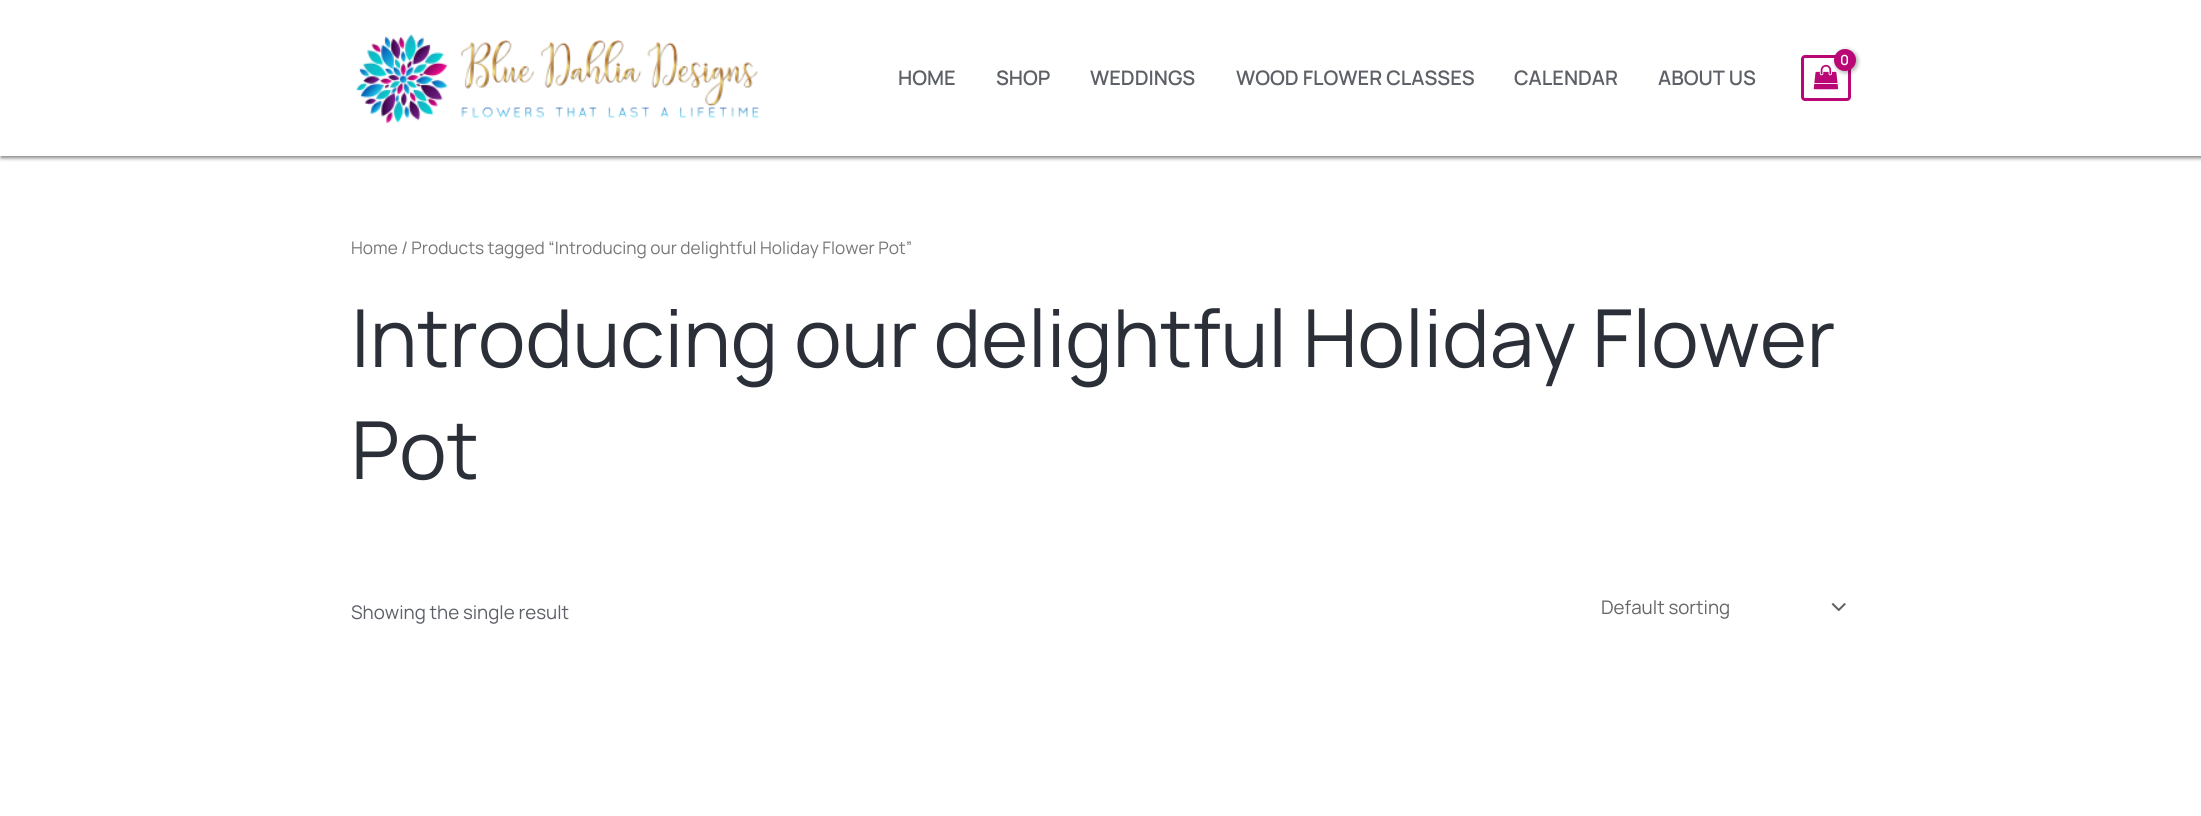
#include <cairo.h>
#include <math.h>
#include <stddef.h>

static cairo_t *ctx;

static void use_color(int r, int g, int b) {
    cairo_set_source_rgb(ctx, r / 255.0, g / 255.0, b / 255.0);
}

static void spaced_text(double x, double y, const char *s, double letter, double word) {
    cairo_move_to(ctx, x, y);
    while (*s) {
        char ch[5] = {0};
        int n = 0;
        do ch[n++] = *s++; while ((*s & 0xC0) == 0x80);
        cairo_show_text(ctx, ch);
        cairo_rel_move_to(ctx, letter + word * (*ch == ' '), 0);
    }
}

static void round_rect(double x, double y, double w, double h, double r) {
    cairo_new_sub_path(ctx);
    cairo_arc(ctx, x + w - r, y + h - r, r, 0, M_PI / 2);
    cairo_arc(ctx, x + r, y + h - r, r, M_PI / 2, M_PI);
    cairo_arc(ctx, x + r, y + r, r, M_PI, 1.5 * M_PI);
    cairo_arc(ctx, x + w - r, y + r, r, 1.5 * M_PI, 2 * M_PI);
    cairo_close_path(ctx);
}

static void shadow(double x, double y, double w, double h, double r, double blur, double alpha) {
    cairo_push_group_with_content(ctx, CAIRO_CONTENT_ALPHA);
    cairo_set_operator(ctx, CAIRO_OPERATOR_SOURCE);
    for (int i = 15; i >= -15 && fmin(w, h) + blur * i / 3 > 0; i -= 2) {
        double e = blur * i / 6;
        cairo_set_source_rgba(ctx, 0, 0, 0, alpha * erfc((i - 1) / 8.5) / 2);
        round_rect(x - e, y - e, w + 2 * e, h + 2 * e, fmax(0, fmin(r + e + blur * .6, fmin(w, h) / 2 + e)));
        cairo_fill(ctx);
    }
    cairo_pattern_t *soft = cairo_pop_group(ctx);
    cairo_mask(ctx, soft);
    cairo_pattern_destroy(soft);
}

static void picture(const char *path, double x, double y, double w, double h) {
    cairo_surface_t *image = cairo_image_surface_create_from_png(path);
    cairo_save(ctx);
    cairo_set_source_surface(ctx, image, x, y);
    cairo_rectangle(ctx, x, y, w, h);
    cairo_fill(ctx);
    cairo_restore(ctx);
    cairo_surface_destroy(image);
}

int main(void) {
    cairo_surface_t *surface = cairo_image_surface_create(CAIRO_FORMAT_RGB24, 2201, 816);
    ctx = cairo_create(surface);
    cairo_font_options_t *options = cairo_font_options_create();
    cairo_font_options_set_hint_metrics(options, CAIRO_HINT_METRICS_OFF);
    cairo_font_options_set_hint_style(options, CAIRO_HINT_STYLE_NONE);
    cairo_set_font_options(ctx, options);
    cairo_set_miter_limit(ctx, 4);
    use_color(255, 255, 255);
    cairo_paint(ctx);
    cairo_save(ctx);
    cairo_rectangle(ctx, 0, 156, 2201, 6);
    cairo_clip(ctx);
    use_color(128, 128, 128);
    shadow(1, 1, 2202, 157, 0, 2, 1);
    cairo_restore(ctx);
    picture("img1.png", 356, 34, 403, 90);
    round_rect(1802.5, 56.5, 47, 43, 2.5);
    use_color(185, 8, 118);
    cairo_set_line_width(ctx, 3);
    cairo_stroke(ctx);
    picture("img2.png", 1813, 64, 26, 26);
    use_color(0, 0, 0);
    shadow(1835, 50, 23, 23, 11.5, 2, 0.3);
    use_color(185, 8, 118);
    cairo_arc(ctx, 1845, 60, 11, 0, 2 * M_PI);
    cairo_fill(ctx);
    cairo_select_font_face(ctx, "Manrope SemiBold", CAIRO_FONT_SLANT_NORMAL, CAIRO_FONT_WEIGHT_NORMAL);
    cairo_set_font_size(ctx, 14);
    use_color(255, 255, 255);
    spaced_text(1840, 65, "0", -1, 0);
    cairo_set_font_size(ctx, 20);
    use_color(93, 97, 103);
    cairo_move_to(ctx, 898, 85);
    cairo_show_text(ctx, "HOME");
    cairo_move_to(ctx, 996, 85);
    cairo_show_text(ctx, "SHOP");
    cairo_move_to(ctx, 1090, 85);
    cairo_show_text(ctx, "WEDDINGS");
    cairo_move_to(ctx, 1236, 85);
    cairo_show_text(ctx, "WOOD FLOWER CLASSES");
    cairo_move_to(ctx, 1514, 85);
    cairo_show_text(ctx, "CALENDAR");
    cairo_move_to(ctx, 1658, 85);
    cairo_show_text(ctx, "ABOUT US");
    cairo_select_font_face(ctx, "Manrope", CAIRO_FONT_SLANT_NORMAL, CAIRO_FONT_WEIGHT_NORMAL);
    cairo_set_font_size(ctx, 17.25);
    use_color(119, 119, 119);
    cairo_move_to(ctx, 351, 254);
    cairo_show_text(ctx, "Home / Products tagged “Introducing our delightful Holiday Flower Pot”");
    cairo_set_font_size(ctx, 80);
    use_color(43, 47, 56);
    cairo_move_to(ctx, 351, 367);
    cairo_show_text(ctx, "Introducing our delightful Holiday Flower");
    cairo_move_to(ctx, 351, 479);
    cairo_show_text(ctx, "Pot");
    cairo_set_font_size(ctx, 18.75);
    use_color(93, 97, 103);
    cairo_move_to(ctx, 351, 619);
    cairo_show_text(ctx, "Showing the single result");
    picture("img3.png", 1831, 603, 15, 8);
    use_color(102, 102, 102);
    cairo_move_to(ctx, 1601, 614);
    cairo_show_text(ctx, "Default sorting");
    cairo_surface_write_to_png(surface, "result.png");
    cairo_font_options_destroy(options);
    cairo_destroy(ctx);
    cairo_surface_destroy(surface);
    return 0;
}
